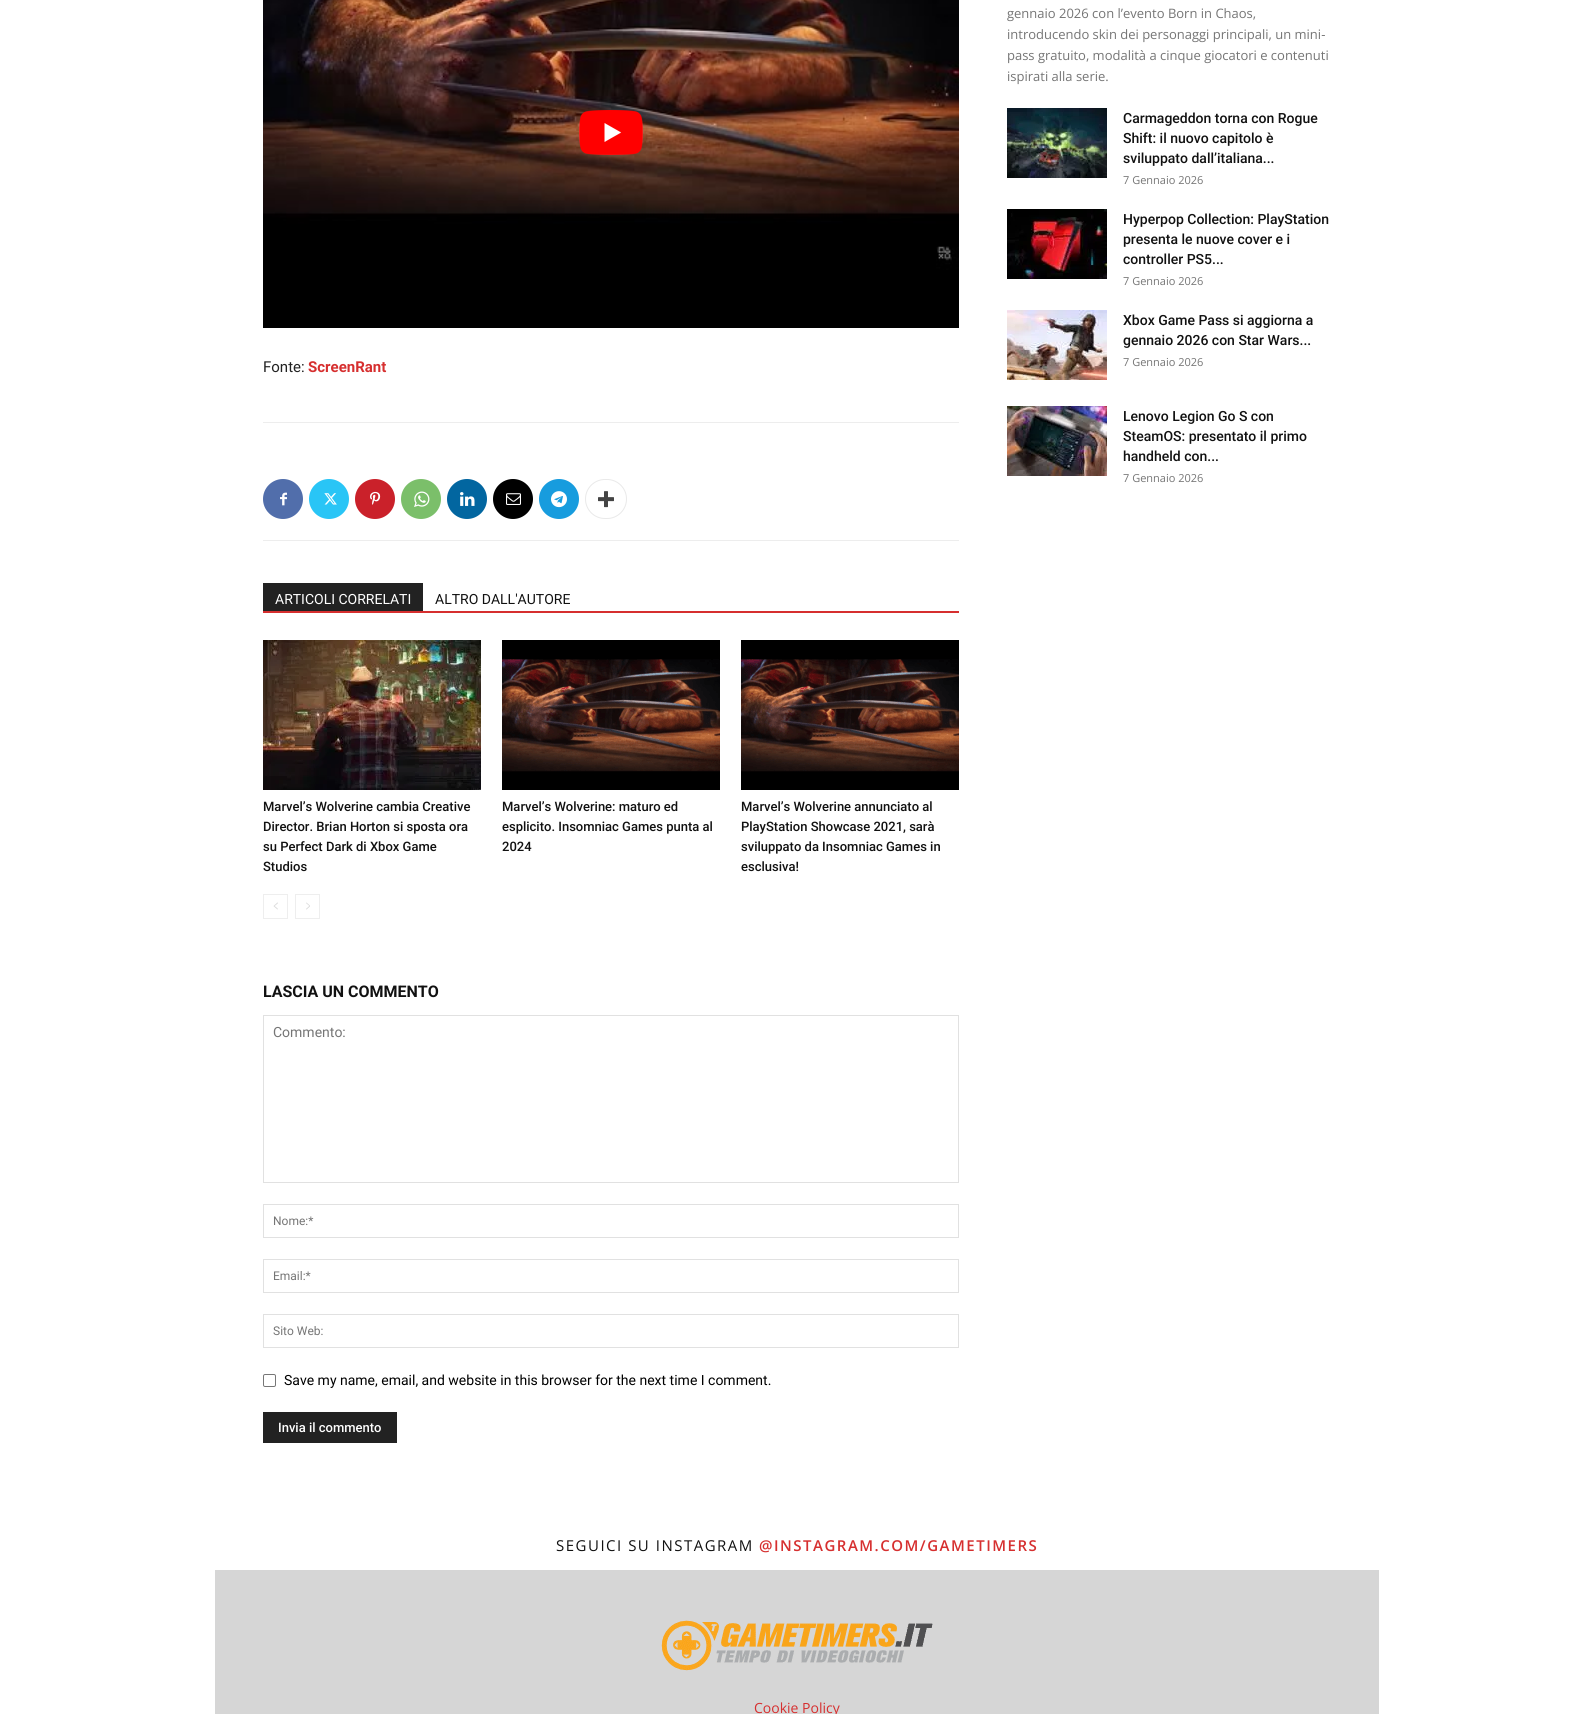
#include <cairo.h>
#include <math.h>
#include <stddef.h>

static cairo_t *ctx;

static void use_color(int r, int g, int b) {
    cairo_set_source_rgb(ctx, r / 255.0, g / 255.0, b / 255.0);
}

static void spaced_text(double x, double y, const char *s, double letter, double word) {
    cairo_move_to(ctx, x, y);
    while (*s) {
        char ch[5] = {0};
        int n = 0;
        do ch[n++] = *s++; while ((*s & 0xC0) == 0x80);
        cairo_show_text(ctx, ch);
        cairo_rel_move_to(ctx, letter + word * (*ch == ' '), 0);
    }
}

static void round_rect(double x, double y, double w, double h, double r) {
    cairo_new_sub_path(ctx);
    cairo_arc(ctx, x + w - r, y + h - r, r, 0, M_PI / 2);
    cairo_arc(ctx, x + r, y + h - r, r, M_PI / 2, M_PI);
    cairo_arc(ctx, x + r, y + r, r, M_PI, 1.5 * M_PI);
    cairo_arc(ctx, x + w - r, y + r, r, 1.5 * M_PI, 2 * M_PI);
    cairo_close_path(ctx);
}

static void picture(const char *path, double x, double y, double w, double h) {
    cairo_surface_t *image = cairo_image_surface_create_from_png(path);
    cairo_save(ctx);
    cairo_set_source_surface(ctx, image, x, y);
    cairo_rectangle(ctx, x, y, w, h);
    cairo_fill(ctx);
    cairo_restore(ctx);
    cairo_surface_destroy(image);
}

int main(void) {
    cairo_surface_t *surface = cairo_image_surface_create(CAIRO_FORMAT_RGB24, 1594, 1714);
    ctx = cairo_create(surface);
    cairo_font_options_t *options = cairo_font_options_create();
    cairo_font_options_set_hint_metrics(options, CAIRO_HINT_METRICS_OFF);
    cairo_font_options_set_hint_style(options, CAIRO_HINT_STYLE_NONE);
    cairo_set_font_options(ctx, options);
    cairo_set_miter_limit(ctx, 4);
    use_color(255, 255, 255);
    cairo_paint(ctx);
    cairo_select_font_face(ctx, "Open Sans", CAIRO_FONT_SLANT_NORMAL, CAIRO_FONT_WEIGHT_NORMAL);
    cairo_set_font_size(ctx, 13);
    use_color(117, 117, 117);
    cairo_move_to(ctx, 1007, 18);
    cairo_show_text(ctx, "gennaio 2026 con l’evento Born in Chaos,");
    cairo_move_to(ctx, 1007, 39);
    cairo_show_text(ctx, "introducendo skin dei personaggi principali, un mini-");
    cairo_move_to(ctx, 1007, 60);
    cairo_show_text(ctx, "pass gratuito, modalità a cinque giocatori e contenuti");
    cairo_move_to(ctx, 1007, 81);
    cairo_show_text(ctx, "ispirati alla serie.");
    picture("img1.png", 1007, 108, 100, 70);
    cairo_select_font_face(ctx, "Roboto Medium", CAIRO_FONT_SLANT_NORMAL, CAIRO_FONT_WEIGHT_NORMAL);
    cairo_set_font_size(ctx, 14);
    use_color(17, 17, 17);
    cairo_move_to(ctx, 1123, 123);
    cairo_show_text(ctx, "Carmageddon torna con Rogue");
    cairo_move_to(ctx, 1123, 143);
    cairo_show_text(ctx, "Shift: il nuovo capitolo è");
    cairo_move_to(ctx, 1123, 163);
    cairo_show_text(ctx, "sviluppato dall’italiana...");
    cairo_select_font_face(ctx, "Open Sans", CAIRO_FONT_SLANT_NORMAL, CAIRO_FONT_WEIGHT_NORMAL);
    cairo_set_font_size(ctx, 11);
    use_color(117, 117, 117);
    cairo_move_to(ctx, 1123, 184);
    cairo_show_text(ctx, "7 Gennaio 2026");
    picture("img2.png", 1007, 209, 100, 70);
    cairo_select_font_face(ctx, "Roboto Medium", CAIRO_FONT_SLANT_NORMAL, CAIRO_FONT_WEIGHT_NORMAL);
    cairo_set_font_size(ctx, 14);
    use_color(17, 17, 17);
    cairo_move_to(ctx, 1123, 224);
    cairo_show_text(ctx, "Hyperpop Collection: PlayStation");
    cairo_move_to(ctx, 1123, 244);
    cairo_show_text(ctx, "presenta le nuove cover e i");
    cairo_move_to(ctx, 1123, 264);
    cairo_show_text(ctx, "controller PS5...");
    cairo_select_font_face(ctx, "Open Sans", CAIRO_FONT_SLANT_NORMAL, CAIRO_FONT_WEIGHT_NORMAL);
    cairo_set_font_size(ctx, 11);
    use_color(117, 117, 117);
    cairo_move_to(ctx, 1123, 285);
    cairo_show_text(ctx, "7 Gennaio 2026");
    picture("img3.png", 1007, 310, 100, 70);
    cairo_select_font_face(ctx, "Roboto Medium", CAIRO_FONT_SLANT_NORMAL, CAIRO_FONT_WEIGHT_NORMAL);
    cairo_set_font_size(ctx, 14);
    use_color(17, 17, 17);
    cairo_move_to(ctx, 1123, 325);
    cairo_show_text(ctx, "Xbox Game Pass si aggiorna a");
    cairo_move_to(ctx, 1123, 345);
    cairo_show_text(ctx, "gennaio 2026 con Star Wars...");
    cairo_select_font_face(ctx, "Open Sans", CAIRO_FONT_SLANT_NORMAL, CAIRO_FONT_WEIGHT_NORMAL);
    cairo_set_font_size(ctx, 11);
    use_color(117, 117, 117);
    cairo_move_to(ctx, 1123, 366);
    cairo_show_text(ctx, "7 Gennaio 2026");
    picture("img4.png", 1007, 406, 100, 70);
    cairo_select_font_face(ctx, "Roboto Medium", CAIRO_FONT_SLANT_NORMAL, CAIRO_FONT_WEIGHT_NORMAL);
    cairo_set_font_size(ctx, 14);
    use_color(17, 17, 17);
    cairo_move_to(ctx, 1123, 421);
    cairo_show_text(ctx, "Lenovo Legion Go S con");
    cairo_move_to(ctx, 1123, 441);
    cairo_show_text(ctx, "SteamOS: presentato il primo");
    cairo_move_to(ctx, 1123, 461);
    cairo_show_text(ctx, "handheld con...");
    cairo_select_font_face(ctx, "Open Sans", CAIRO_FONT_SLANT_NORMAL, CAIRO_FONT_WEIGHT_NORMAL);
    cairo_set_font_size(ctx, 11);
    use_color(117, 117, 117);
    cairo_move_to(ctx, 1123, 482);
    cairo_show_text(ctx, "7 Gennaio 2026");
    picture("img5.png", 263, 0, 696, 328);
    picture("img6.png", 579, 110, 64, 45);
    cairo_select_font_face(ctx, "Roboto", CAIRO_FONT_SLANT_NORMAL, CAIRO_FONT_WEIGHT_NORMAL);
    cairo_set_font_size(ctx, 15);
    use_color(34, 34, 34);
    cairo_move_to(ctx, 263, 372);
    cairo_show_text(ctx, "Fonte:");
    cairo_select_font_face(ctx, "Roboto", CAIRO_FONT_SLANT_NORMAL, CAIRO_FONT_WEIGHT_BOLD);
    use_color(214, 47, 47);
    cairo_move_to(ctx, 308, 372);
    cairo_show_text(ctx, "ScreenRant");
    use_color(237, 237, 237);
    cairo_rectangle(ctx, 263, 422, 696, 1);
    cairo_fill(ctx);
    cairo_rectangle(ctx, 263, 540, 696, 1);
    cairo_fill(ctx);
    use_color(81, 110, 171);
    cairo_arc(ctx, 283, 499, 20, 0, 2 * M_PI);
    cairo_fill(ctx);
    picture("img7.png", 280, 492, 7, 14);
    use_color(41, 197, 246);
    cairo_arc(ctx, 329, 499, 20, 0, 2 * M_PI);
    cairo_fill(ctx);
    picture("img8.png", 324, 493, 13, 12);
    use_color(202, 33, 42);
    cairo_arc(ctx, 375, 499, 20, 0, 2 * M_PI);
    cairo_fill(ctx);
    picture("img9.png", 370, 491, 11, 14);
    use_color(123, 191, 106);
    cairo_arc(ctx, 421, 499, 20, 0, 2 * M_PI);
    cairo_fill(ctx);
    picture("img10.png", 414, 491, 16, 16);
    use_color(2, 102, 160);
    cairo_arc(ctx, 467, 499, 20, 0, 2 * M_PI);
    cairo_fill(ctx);
    picture("img11.png", 460, 492, 15, 14);
    use_color(0, 0, 0);
    cairo_arc(ctx, 513, 499, 20, 0, 2 * M_PI);
    cairo_fill(ctx);
    picture("img12.png", 506, 493, 15, 12);
    use_color(23, 156, 222);
    cairo_arc(ctx, 559, 499, 20, 0, 2 * M_PI);
    cairo_fill(ctx);
    picture("img13.png", 551, 491, 16, 17);
    round_rect(585.5, 479.5, 41, 39, 19.5);
    use_color(233, 233, 233);
    cairo_set_line_width(ctx, 1);
    cairo_stroke(ctx);
    picture("img14.png", 598, 491, 16, 17);
    use_color(214, 47, 47);
    cairo_rectangle(ctx, 263, 611, 696, 2);
    cairo_fill(ctx);
    use_color(34, 34, 34);
    cairo_rectangle(ctx, 263, 583, 160, 28);
    cairo_fill(ctx);
    cairo_select_font_face(ctx, "Roboto", CAIRO_FONT_SLANT_NORMAL, CAIRO_FONT_WEIGHT_NORMAL);
    cairo_set_font_size(ctx, 14);
    use_color(255, 255, 255);
    cairo_move_to(ctx, 275, 604);
    cairo_show_text(ctx, "ARTICOLI CORRELATI");
    use_color(17, 17, 17);
    cairo_move_to(ctx, 435, 604);
    cairo_show_text(ctx, "ALTRO DALL'AUTORE");
    picture("img15.png", 263, 640, 218, 150);
    cairo_select_font_face(ctx, "Roboto Medium", CAIRO_FONT_SLANT_NORMAL, CAIRO_FONT_WEIGHT_NORMAL);
    cairo_set_font_size(ctx, 13);
    cairo_move_to(ctx, 263, 811);
    cairo_show_text(ctx, "Marvel’s Wolverine cambia Creative");
    cairo_move_to(ctx, 263, 831);
    cairo_show_text(ctx, "Director. Brian Horton si sposta ora");
    cairo_move_to(ctx, 263, 851);
    cairo_show_text(ctx, "su Perfect Dark di Xbox Game");
    cairo_move_to(ctx, 263, 871);
    cairo_show_text(ctx, "Studios");
    picture("img16.png", 502, 640, 218, 150);
    cairo_move_to(ctx, 502, 811);
    cairo_show_text(ctx, "Marvel’s Wolverine: maturo ed");
    cairo_move_to(ctx, 502, 831);
    cairo_show_text(ctx, "esplicito. Insomniac Games punta al");
    cairo_move_to(ctx, 502, 851);
    cairo_show_text(ctx, "2024");
    picture("img16.png", 741, 640, 218, 150);
    cairo_move_to(ctx, 741, 811);
    cairo_show_text(ctx, "Marvel’s Wolverine annunciato al");
    cairo_move_to(ctx, 741, 831);
    cairo_show_text(ctx, "PlayStation Showcase 2021, sarà");
    cairo_move_to(ctx, 741, 851);
    cairo_show_text(ctx, "sviluppato da Insomniac Games in");
    cairo_move_to(ctx, 741, 871);
    cairo_show_text(ctx, "esclusiva!");
    cairo_rectangle(ctx, 263.5, 894.5, 24, 24);
    use_color(238, 238, 238);
    cairo_stroke(ctx);
    picture("img17.png", 273, 902, 5, 8);
    cairo_rectangle(ctx, 295.5, 894.5, 24, 24);
    cairo_stroke(ctx);
    picture("img18.png", 306, 902, 4, 8);
    cairo_select_font_face(ctx, "Roboto", CAIRO_FONT_SLANT_NORMAL, CAIRO_FONT_WEIGHT_BOLD);
    cairo_set_font_size(ctx, 16);
    use_color(17, 17, 17);
    cairo_move_to(ctx, 263, 997);
    cairo_show_text(ctx, "LASCIA UN COMMENTO");
    cairo_rectangle(ctx, 263.5, 1015.5, 695, 167);
    use_color(225, 225, 225);
    cairo_stroke(ctx);
    cairo_select_font_face(ctx, "Roboto", CAIRO_FONT_SLANT_NORMAL, CAIRO_FONT_WEIGHT_NORMAL);
    cairo_set_font_size(ctx, 14);
    use_color(117, 117, 117);
    cairo_move_to(ctx, 273, 1037);
    cairo_show_text(ctx, "Commento:");
    cairo_rectangle(ctx, 263.5, 1204.5, 695, 33);
    use_color(225, 225, 225);
    cairo_stroke(ctx);
    cairo_set_font_size(ctx, 12);
    use_color(117, 117, 117);
    cairo_move_to(ctx, 273, 1225);
    cairo_show_text(ctx, "Nome:*");
    cairo_rectangle(ctx, 263.5, 1259.5, 695, 33);
    use_color(225, 225, 225);
    cairo_stroke(ctx);
    use_color(117, 117, 117);
    cairo_move_to(ctx, 273, 1280);
    cairo_show_text(ctx, "Email:*");
    cairo_rectangle(ctx, 263.5, 1314.5, 695, 33);
    use_color(225, 225, 225);
    cairo_stroke(ctx);
    use_color(117, 117, 117);
    cairo_move_to(ctx, 273, 1335);
    cairo_show_text(ctx, "Sito Web:");
    round_rect(263.5, 1374.5, 12, 12, 1.5);
    use_color(118, 118, 118);
    cairo_stroke(ctx);
    cairo_set_font_size(ctx, 14);
    use_color(0, 0, 0);
    cairo_move_to(ctx, 284, 1385);
    cairo_show_text(ctx, "Save my name, email, and website in this browser for the next time I comment.");
    use_color(34, 34, 34);
    cairo_rectangle(ctx, 263, 1412, 134, 31);
    cairo_fill(ctx);
    cairo_select_font_face(ctx, "Roboto Medium", CAIRO_FONT_SLANT_NORMAL, CAIRO_FONT_WEIGHT_NORMAL);
    cairo_set_font_size(ctx, 13);
    use_color(255, 255, 255);
    cairo_move_to(ctx, 278, 1432);
    cairo_show_text(ctx, "Invia il commento");
    cairo_select_font_face(ctx, "Open Sans", CAIRO_FONT_SLANT_NORMAL, CAIRO_FONT_WEIGHT_NORMAL);
    cairo_set_font_size(ctx, 15);
    use_color(17, 17, 17);
    spaced_text(556, 1551, "SEGUICI SU INSTAGRAM", 1.5, 0);
    cairo_select_font_face(ctx, "Open Sans SemiBold", CAIRO_FONT_SLANT_NORMAL, CAIRO_FONT_WEIGHT_NORMAL);
    use_color(214, 47, 47);
    spaced_text(759, 1551, "@INSTAGRAM.COM/GAMETIMERS", 1.5, 0);
    use_color(214, 214, 214);
    cairo_rectangle(ctx, 215, 1570, 1164, 144);
    cairo_fill(ctx);
    picture("img19.png", 661, 1620, 272, 51);
    cairo_select_font_face(ctx, "Open Sans", CAIRO_FONT_SLANT_NORMAL, CAIRO_FONT_WEIGHT_NORMAL);
    cairo_set_font_size(ctx, 14);
    use_color(214, 47, 47);
    cairo_move_to(ctx, 754, 1713);
    cairo_show_text(ctx, "Cookie Policy");
    cairo_surface_write_to_png(surface, "result.png");
    cairo_font_options_destroy(options);
    cairo_destroy(ctx);
    cairo_surface_destroy(surface);
    return 0;
}
